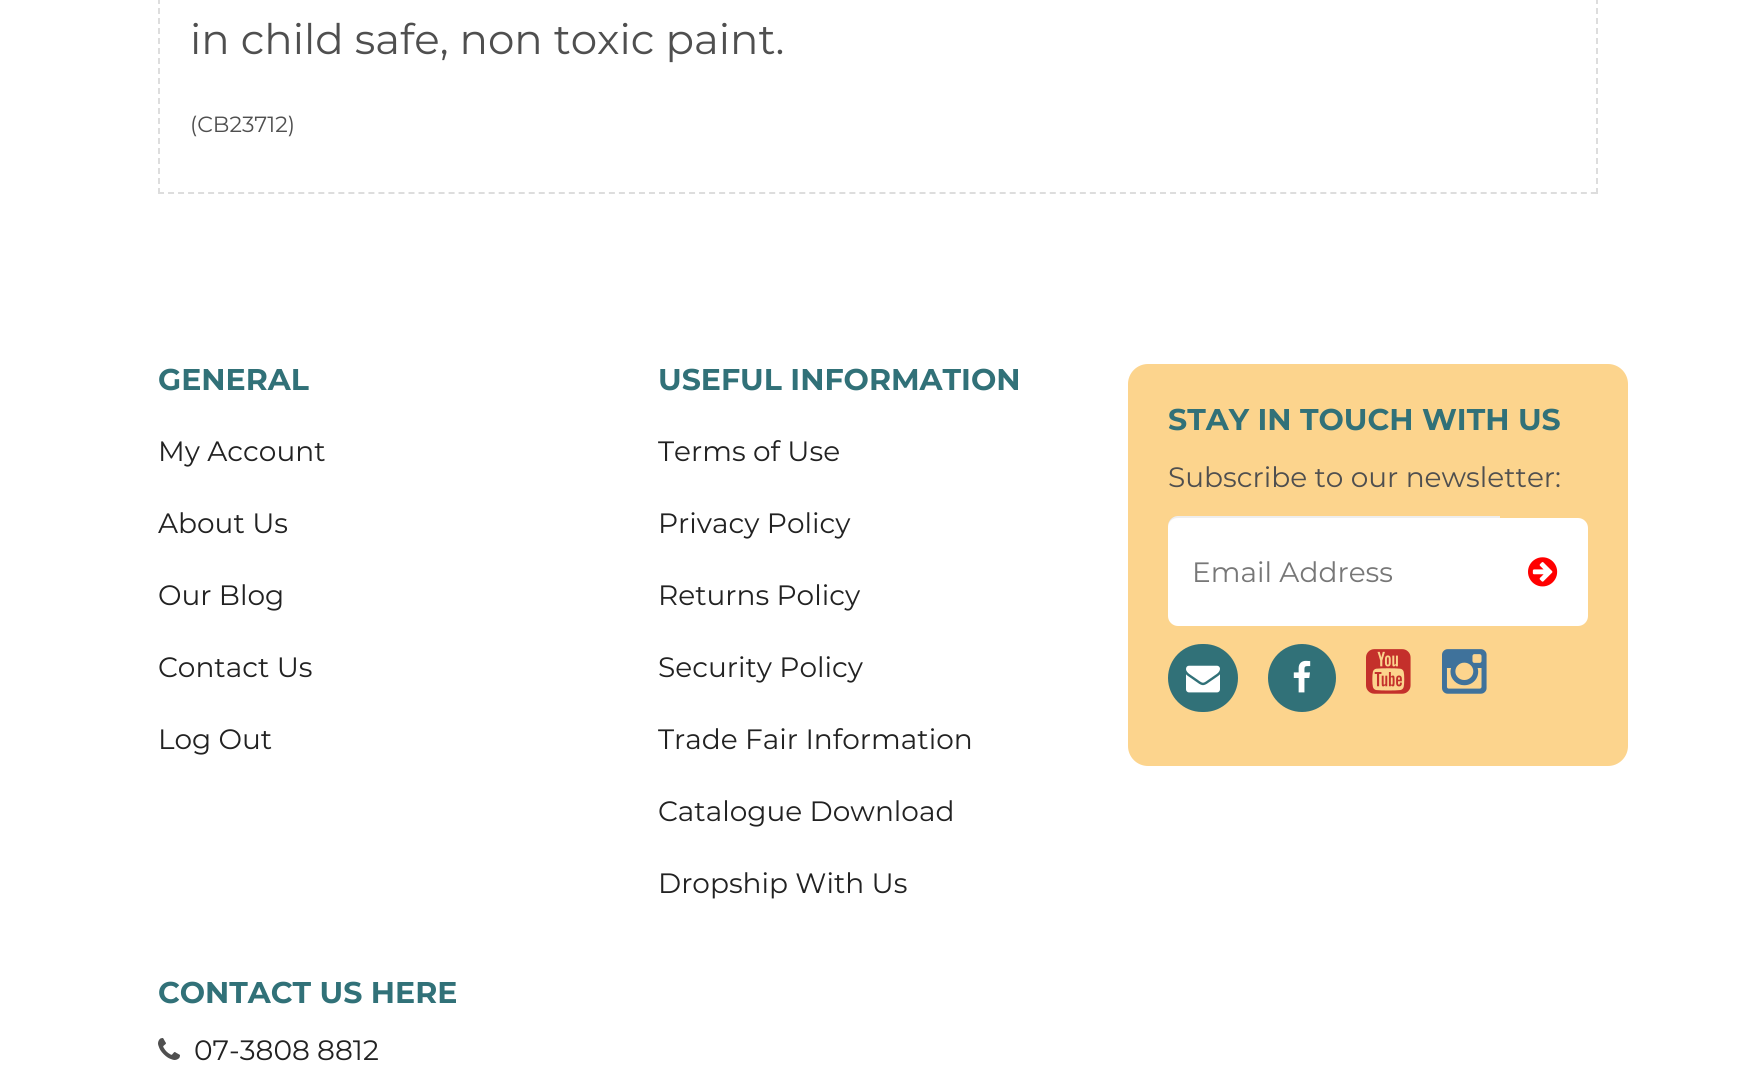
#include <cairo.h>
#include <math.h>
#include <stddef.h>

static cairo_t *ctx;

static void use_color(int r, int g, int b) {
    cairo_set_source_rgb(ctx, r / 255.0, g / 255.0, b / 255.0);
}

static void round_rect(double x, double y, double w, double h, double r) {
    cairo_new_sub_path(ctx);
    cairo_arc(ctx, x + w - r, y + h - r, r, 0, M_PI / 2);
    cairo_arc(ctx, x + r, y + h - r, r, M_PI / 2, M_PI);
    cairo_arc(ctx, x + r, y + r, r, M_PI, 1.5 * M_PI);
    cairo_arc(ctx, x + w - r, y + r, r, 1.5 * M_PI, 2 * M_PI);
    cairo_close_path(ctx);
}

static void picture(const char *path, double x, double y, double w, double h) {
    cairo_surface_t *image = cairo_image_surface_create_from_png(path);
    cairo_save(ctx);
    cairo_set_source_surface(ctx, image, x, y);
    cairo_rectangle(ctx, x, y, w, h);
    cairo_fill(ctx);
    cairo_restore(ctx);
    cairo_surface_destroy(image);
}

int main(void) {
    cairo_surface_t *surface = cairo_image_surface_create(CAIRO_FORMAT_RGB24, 1756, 1092);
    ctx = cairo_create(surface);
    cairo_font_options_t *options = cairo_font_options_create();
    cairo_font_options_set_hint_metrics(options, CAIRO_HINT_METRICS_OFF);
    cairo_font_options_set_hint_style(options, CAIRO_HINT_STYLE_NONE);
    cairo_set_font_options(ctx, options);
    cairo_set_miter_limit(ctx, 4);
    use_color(255, 255, 255);
    cairo_paint(ctx);
    cairo_new_path(ctx);
    cairo_move_to(ctx, 1597, -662);
    cairo_line_to(ctx, 1597, 194);
    use_color(221, 221, 221);
    cairo_set_dash(ctx, (double[]){6, 4}, 2, 0);
    cairo_stroke(ctx);
    cairo_new_path(ctx);
    cairo_move_to(ctx, 158, 193);
    cairo_line_to(ctx, 1598, 193);
    cairo_set_dash(ctx, (double[]){6, 4.02}, 2, 0);
    cairo_stroke(ctx);
    cairo_new_path(ctx);
    cairo_move_to(ctx, 159, -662);
    cairo_line_to(ctx, 159, 194);
    cairo_set_dash(ctx, (double[]){6, 4}, 2, 0);
    cairo_stroke(ctx);
    cairo_select_font_face(ctx, "Montserrat", CAIRO_FONT_SLANT_NORMAL, CAIRO_FONT_WEIGHT_NORMAL);
    cairo_set_font_size(ctx, 42);
    use_color(79, 79, 79);
    cairo_move_to(ctx, 190, 54);
    cairo_show_text(ctx, "in child safe, non toxic paint.");
    cairo_set_font_size(ctx, 22);
    cairo_move_to(ctx, 190, 132);
    cairo_show_text(ctx, "(CB23712)");
    cairo_select_font_face(ctx, "Montserrat", CAIRO_FONT_SLANT_NORMAL, CAIRO_FONT_WEIGHT_BOLD);
    cairo_set_font_size(ctx, 30);
    use_color(49, 113, 120);
    cairo_move_to(ctx, 158, 390);
    cairo_show_text(ctx, "GENERAL");
    cairo_select_font_face(ctx, "Montserrat", CAIRO_FONT_SLANT_NORMAL, CAIRO_FONT_WEIGHT_NORMAL);
    cairo_set_font_size(ctx, 28);
    use_color(34, 34, 34);
    cairo_move_to(ctx, 158, 461);
    cairo_show_text(ctx, "My Account");
    cairo_move_to(ctx, 158, 533);
    cairo_show_text(ctx, "About Us");
    cairo_move_to(ctx, 158, 605);
    cairo_show_text(ctx, "Our Blog");
    cairo_move_to(ctx, 158, 677);
    cairo_show_text(ctx, "Contact Us");
    cairo_move_to(ctx, 158, 749);
    cairo_show_text(ctx, "Log Out");
    cairo_select_font_face(ctx, "Montserrat", CAIRO_FONT_SLANT_NORMAL, CAIRO_FONT_WEIGHT_BOLD);
    cairo_set_font_size(ctx, 30);
    use_color(49, 113, 120);
    cairo_move_to(ctx, 658, 390);
    cairo_show_text(ctx, "USEFUL INFORMATION");
    cairo_select_font_face(ctx, "Montserrat", CAIRO_FONT_SLANT_NORMAL, CAIRO_FONT_WEIGHT_NORMAL);
    cairo_set_font_size(ctx, 28);
    use_color(34, 34, 34);
    cairo_move_to(ctx, 658, 461);
    cairo_show_text(ctx, "Terms of Use");
    cairo_move_to(ctx, 658, 533);
    cairo_show_text(ctx, "Privacy Policy");
    cairo_move_to(ctx, 658, 605);
    cairo_show_text(ctx, "Returns Policy");
    cairo_move_to(ctx, 658, 677);
    cairo_show_text(ctx, "Security Policy");
    cairo_move_to(ctx, 658, 749);
    cairo_show_text(ctx, "Trade Fair Information");
    cairo_move_to(ctx, 658, 821);
    cairo_show_text(ctx, "Catalogue Download");
    cairo_move_to(ctx, 658, 893);
    cairo_show_text(ctx, "Dropship With Us");
    cairo_select_font_face(ctx, "Montserrat", CAIRO_FONT_SLANT_NORMAL, CAIRO_FONT_WEIGHT_BOLD);
    cairo_set_font_size(ctx, 30);
    use_color(49, 113, 120);
    cairo_move_to(ctx, 158, 1003);
    cairo_show_text(ctx, "CONTACT US HERE");
    picture("img1.png", 158, 1038, 22, 22);
    cairo_select_font_face(ctx, "Montserrat", CAIRO_FONT_SLANT_NORMAL, CAIRO_FONT_WEIGHT_NORMAL);
    cairo_set_font_size(ctx, 28);
    use_color(34, 34, 34);
    cairo_move_to(ctx, 194, 1060);
    cairo_show_text(ctx, "07-3808 8812");
    use_color(252, 212, 141);
    round_rect(1128, 364, 500, 402, 20);
    cairo_fill(ctx);
    cairo_select_font_face(ctx, "Montserrat", CAIRO_FONT_SLANT_NORMAL, CAIRO_FONT_WEIGHT_BOLD);
    cairo_set_font_size(ctx, 30);
    use_color(49, 113, 120);
    cairo_move_to(ctx, 1168, 430);
    cairo_show_text(ctx, "STAY IN TOUCH WITH US");
    cairo_select_font_face(ctx, "Montserrat", CAIRO_FONT_SLANT_NORMAL, CAIRO_FONT_WEIGHT_NORMAL);
    cairo_set_font_size(ctx, 28);
    use_color(79, 79, 79);
    cairo_move_to(ctx, 1168, 487);
    cairo_show_text(ctx, "Subscribe to our newsletter:");
    use_color(255, 255, 255);
    cairo_new_path(ctx);
    cairo_move_to(ctx, 1498, 518);
    cairo_line_to(ctx, 1578, 518);
    cairo_curve_to(ctx, 1583.5, 518, 1588, 522.5, 1588, 528);
    cairo_line_to(ctx, 1588, 616);
    cairo_curve_to(ctx, 1588, 621.5, 1583.5, 626, 1578, 626);
    cairo_line_to(ctx, 1498, 626);
    cairo_close_path(ctx);
    cairo_fill(ctx);
    cairo_new_path(ctx);
    cairo_move_to(ctx, 1178, 516);
    cairo_line_to(ctx, 1500, 516);
    cairo_line_to(ctx, 1500, 626);
    cairo_line_to(ctx, 1178, 626);
    cairo_curve_to(ctx, 1172.5, 626, 1168, 621.5, 1168, 616);
    cairo_line_to(ctx, 1168, 526);
    cairo_curve_to(ctx, 1168, 520.5, 1172.5, 516, 1178, 516);
    cairo_close_path(ctx);
    cairo_fill(ctx);
    cairo_set_source_rgba(ctx, 0, 0, 0, 0.07);
    cairo_new_path(ctx);
    cairo_move_to(ctx, 1178, 518);
    cairo_line_to(ctx, 1500, 518);
    cairo_line_to(ctx, 1500, 516);
    cairo_line_to(ctx, 1178, 516);
    cairo_curve_to(ctx, 1172, 516, 1168, 520, 1168, 526);
    cairo_line_to(ctx, 1168, 528);
    cairo_curve_to(ctx, 1168, 522, 1172, 518, 1178, 518);
    cairo_close_path(ctx);
    cairo_fill(ctx);
    use_color(119, 119, 119);
    cairo_move_to(ctx, 1192, 582);
    cairo_show_text(ctx, "Email Address");
    picture("img2.png", 1528, 557, 30, 30);
    use_color(49, 113, 120);
    round_rect(1168, 644, 70, 68, 34);
    cairo_fill(ctx);
    picture("img3.png", 1186, 665, 34, 28);
    cairo_arc(ctx, 1302, 678, 34, 0, 2 * M_PI);
    cairo_fill(ctx);
    picture("img4.png", 1293, 660, 18, 33);
    picture("img5.png", 1366, 649, 45, 45);
    picture("img6.png", 1442, 649, 45, 45);
    cairo_surface_write_to_png(surface, "result.png");
    cairo_font_options_destroy(options);
    cairo_destroy(ctx);
    cairo_surface_destroy(surface);
    return 0;
}
